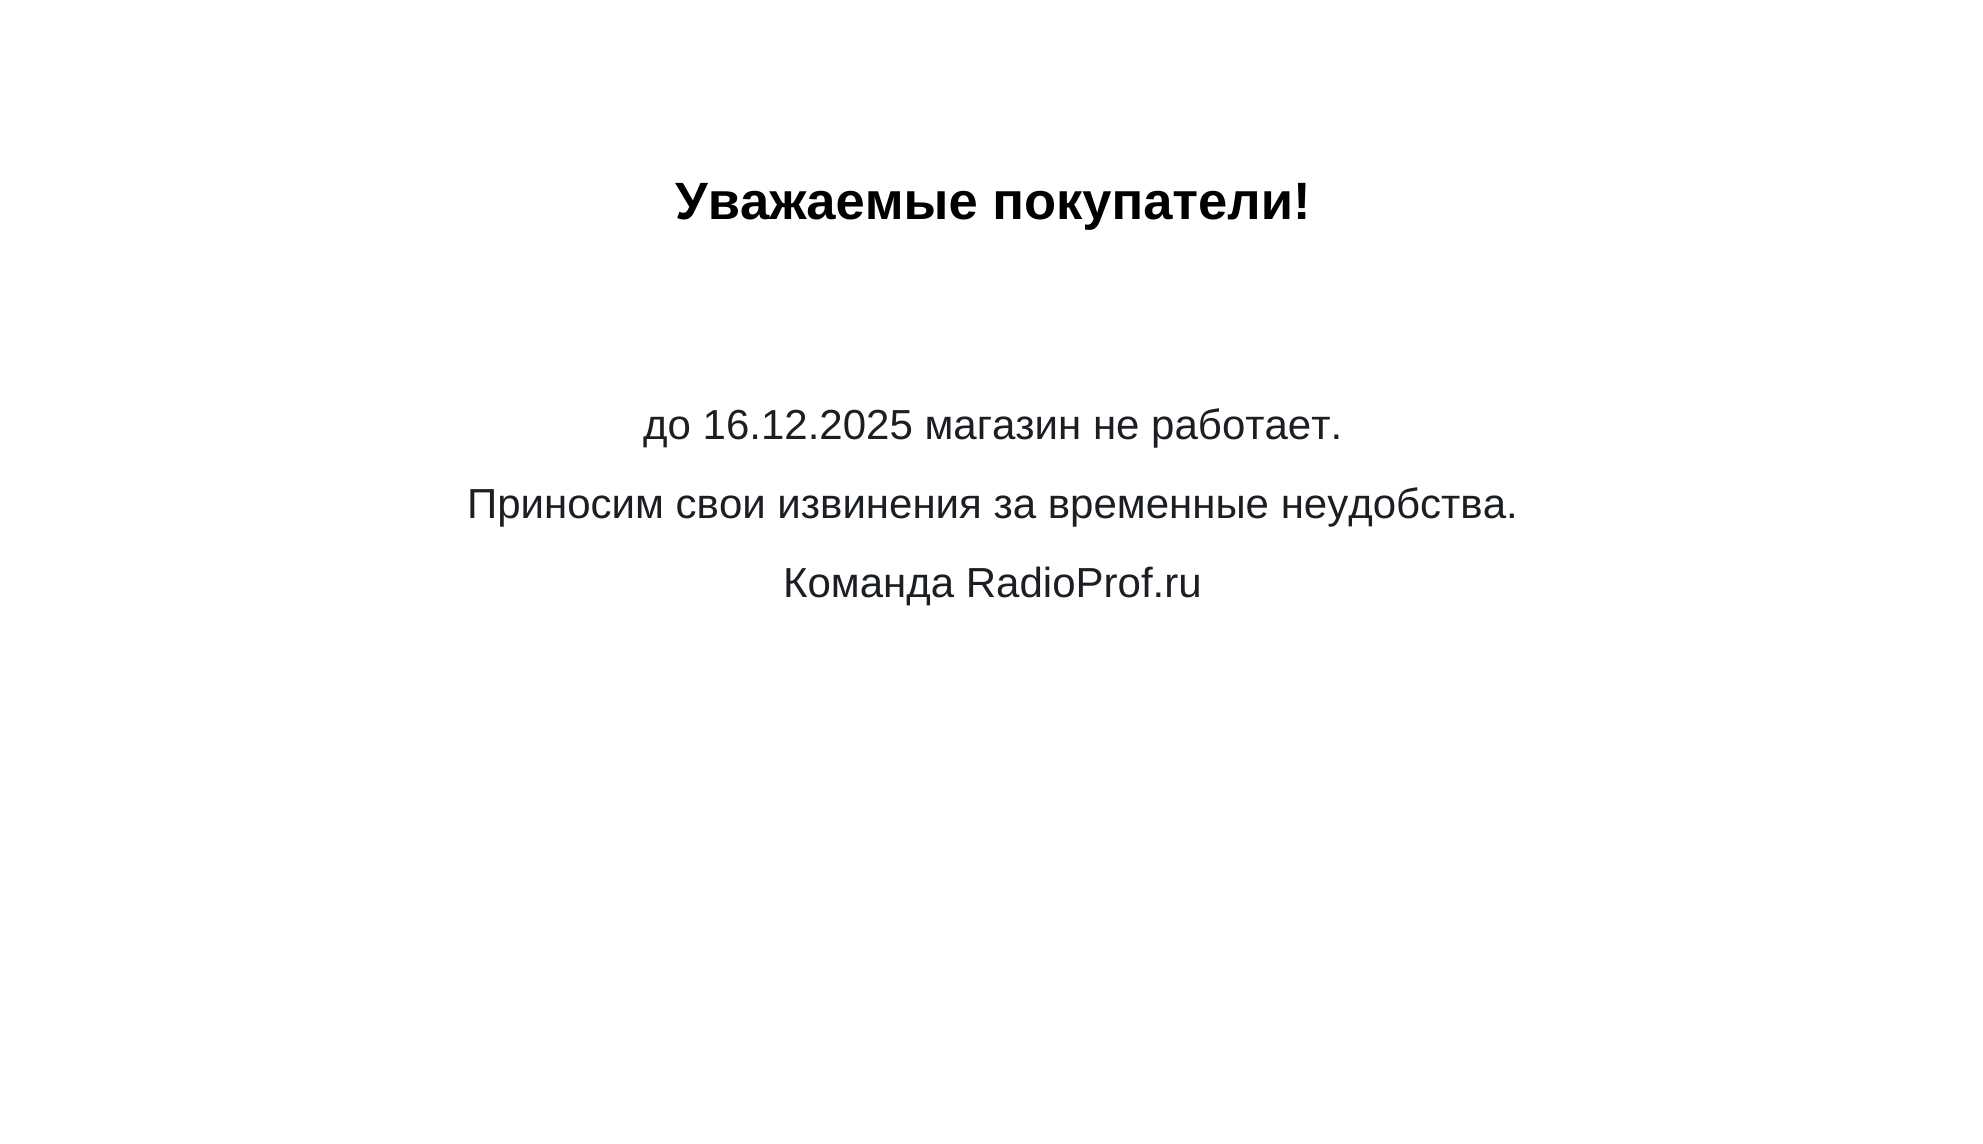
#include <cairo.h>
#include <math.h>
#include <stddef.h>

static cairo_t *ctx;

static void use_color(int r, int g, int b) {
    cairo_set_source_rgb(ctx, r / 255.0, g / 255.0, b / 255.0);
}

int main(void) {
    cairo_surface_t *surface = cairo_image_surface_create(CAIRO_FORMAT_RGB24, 1983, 1144);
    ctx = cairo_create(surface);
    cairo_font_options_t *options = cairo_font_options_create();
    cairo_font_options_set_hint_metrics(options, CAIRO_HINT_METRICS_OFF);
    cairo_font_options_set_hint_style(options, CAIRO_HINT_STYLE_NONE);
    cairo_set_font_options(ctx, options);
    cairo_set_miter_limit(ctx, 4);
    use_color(255, 255, 255);
    cairo_paint(ctx);
    cairo_select_font_face(ctx, "Liberation Sans", CAIRO_FONT_SLANT_NORMAL, CAIRO_FONT_WEIGHT_BOLD);
    cairo_set_font_size(ctx, 52.5);
    use_color(0, 0, 0);
    cairo_move_to(ctx, 675, 219);
    cairo_show_text(ctx, "Уважаемые покупатели!");
    cairo_select_font_face(ctx, "Liberation Sans", CAIRO_FONT_SLANT_NORMAL, CAIRO_FONT_WEIGHT_NORMAL);
    cairo_set_font_size(ctx, 42);
    use_color(27, 31, 35);
    cairo_move_to(ctx, 643, 439);
    cairo_show_text(ctx, "до 16.12.2025 магазин не работает.");
    cairo_move_to(ctx, 467, 518);
    cairo_show_text(ctx, "Приносим свои извинения за временные неудобства.");
    cairo_move_to(ctx, 783, 597);
    cairo_show_text(ctx, "Команда RadioProf.ru");
    cairo_surface_write_to_png(surface, "result.png");
    cairo_font_options_destroy(options);
    cairo_destroy(ctx);
    cairo_surface_destroy(surface);
    return 0;
}
